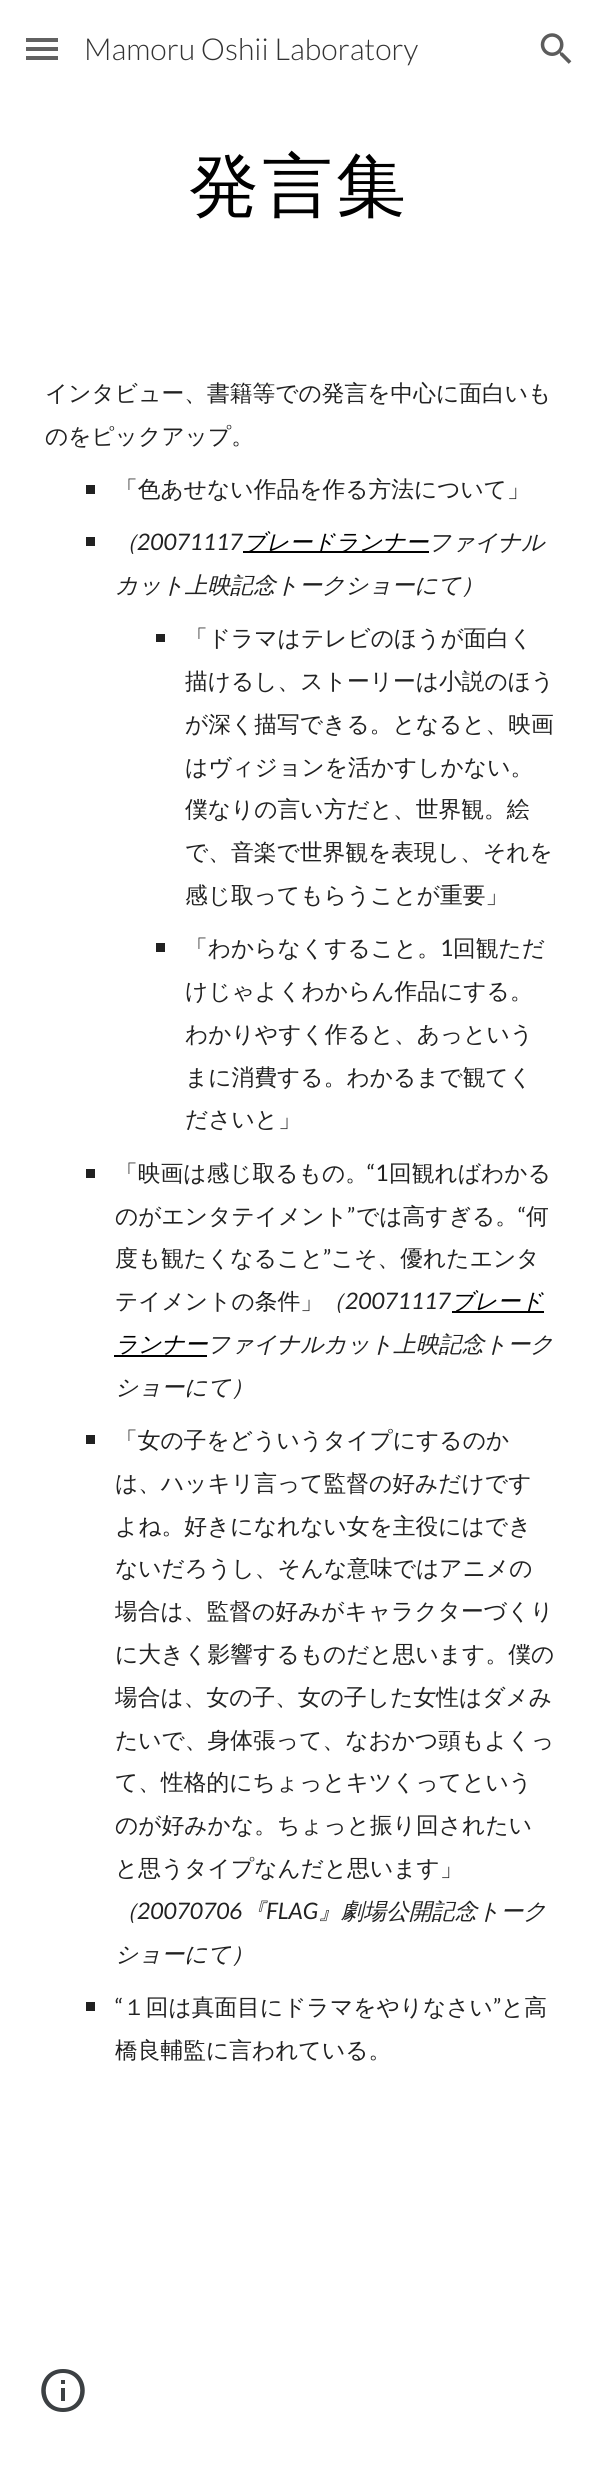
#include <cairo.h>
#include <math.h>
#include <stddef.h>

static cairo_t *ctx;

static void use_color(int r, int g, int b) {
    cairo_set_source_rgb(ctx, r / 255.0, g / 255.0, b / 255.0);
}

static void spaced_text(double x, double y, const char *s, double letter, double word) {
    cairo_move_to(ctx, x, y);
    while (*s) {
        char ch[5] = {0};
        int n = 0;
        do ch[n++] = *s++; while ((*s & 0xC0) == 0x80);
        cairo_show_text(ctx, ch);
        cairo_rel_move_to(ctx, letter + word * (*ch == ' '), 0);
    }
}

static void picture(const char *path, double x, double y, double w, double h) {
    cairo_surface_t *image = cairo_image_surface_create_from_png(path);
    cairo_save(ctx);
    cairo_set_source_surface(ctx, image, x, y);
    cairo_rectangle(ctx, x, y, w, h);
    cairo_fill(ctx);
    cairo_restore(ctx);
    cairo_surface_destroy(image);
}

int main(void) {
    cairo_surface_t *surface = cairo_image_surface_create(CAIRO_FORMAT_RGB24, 598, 2472);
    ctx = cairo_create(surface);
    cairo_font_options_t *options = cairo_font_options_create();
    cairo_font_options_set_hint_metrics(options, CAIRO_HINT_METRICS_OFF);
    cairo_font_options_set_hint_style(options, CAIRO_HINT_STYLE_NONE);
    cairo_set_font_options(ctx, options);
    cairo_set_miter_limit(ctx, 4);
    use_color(255, 255, 255);
    cairo_paint(ctx);
    use_color(98, 98, 98);
    cairo_rectangle(ctx, 26, 38, 32, 4);
    cairo_fill(ctx);
    cairo_rectangle(ctx, 26, 47, 32, 4);
    cairo_fill(ctx);
    cairo_rectangle(ctx, 26, 56, 32, 4);
    cairo_fill(ctx);
    cairo_select_font_face(ctx, "Lato Light", CAIRO_FONT_SLANT_NORMAL, CAIRO_FONT_WEIGHT_NORMAL);
    cairo_set_font_size(ctx, 30.25);
    use_color(51, 51, 51);
    cairo_move_to(ctx, 84, 60);
    cairo_show_text(ctx, "Mamoru Oshii Laboratory");
    picture("img1.png", 540, 33, 32, 31);
    cairo_select_font_face(ctx, "WenQuanYi Zen Hei Medium", CAIRO_FONT_SLANT_NORMAL, CAIRO_FONT_WEIGHT_NORMAL);
    cairo_set_font_size(ctx, 70);
    use_color(0, 0, 0);
    spaced_text(189, 210, "発言集", 3.5, 0);
    cairo_set_font_size(ctx, 22.75);
    use_color(33, 33, 33);
    cairo_move_to(ctx, 45, 401);
    cairo_show_text(ctx, "インタビュー、書籍等での発言を中心に面白いも");
    cairo_move_to(ctx, 45, 444);
    cairo_show_text(ctx, "のをピックアップ。");
    cairo_rectangle(ctx, 86, 485, 9, 9);
    cairo_fill(ctx);
    cairo_move_to(ctx, 115, 497);
    cairo_show_text(ctx, "「色あせない作品を作る方法について」");
    cairo_rectangle(ctx, 86, 537, 9, 9);
    cairo_fill(ctx);
    cairo_select_font_face(ctx, "WenQuanYi Zen Hei Medium", CAIRO_FONT_SLANT_ITALIC, CAIRO_FONT_WEIGHT_NORMAL);
    cairo_move_to(ctx, 115, 550);
    cairo_show_text(ctx, "（");
    cairo_select_font_face(ctx, "Lato", CAIRO_FONT_SLANT_ITALIC, CAIRO_FONT_WEIGHT_NORMAL);
    cairo_move_to(ctx, 137, 550);
    cairo_show_text(ctx, "20071117");
    use_color(0, 0, 0);
    cairo_rectangle(ctx, 243, 551, 186, 2);
    cairo_fill(ctx);
    cairo_select_font_face(ctx, "WenQuanYi Zen Hei Medium", CAIRO_FONT_SLANT_ITALIC, CAIRO_FONT_WEIGHT_NORMAL);
    cairo_move_to(ctx, 243, 550);
    cairo_show_text(ctx, "ブレードランナー");
    use_color(33, 33, 33);
    cairo_move_to(ctx, 428, 550);
    cairo_show_text(ctx, "ファイナル");
    cairo_move_to(ctx, 115, 593);
    cairo_show_text(ctx, "カット上映記念トークショーにて）");
    cairo_rectangle(ctx, 156, 634, 9, 8);
    cairo_fill(ctx);
    cairo_select_font_face(ctx, "WenQuanYi Zen Hei Medium", CAIRO_FONT_SLANT_NORMAL, CAIRO_FONT_WEIGHT_NORMAL);
    cairo_move_to(ctx, 185, 646);
    cairo_show_text(ctx, "「ドラマはテレビのほうが面白く");
    cairo_move_to(ctx, 185, 689);
    cairo_show_text(ctx, "描けるし、ストーリーは小説のほう");
    cairo_move_to(ctx, 185, 732);
    cairo_show_text(ctx, "が深く描写できる。となると、映画");
    cairo_move_to(ctx, 185, 775);
    cairo_show_text(ctx, "はヴィジョンを活かすしかない。");
    cairo_move_to(ctx, 185, 817);
    cairo_show_text(ctx, "僕なりの言い方だと、世界観。絵");
    cairo_move_to(ctx, 185, 860);
    cairo_show_text(ctx, "で、音楽で世界観を表現し、それを");
    cairo_move_to(ctx, 185, 903);
    cairo_show_text(ctx, "感じ取ってもらうことが重要」");
    cairo_rectangle(ctx, 156, 943, 9, 9);
    cairo_fill(ctx);
    cairo_move_to(ctx, 185, 956);
    cairo_show_text(ctx, "「わからなくすること。");
    cairo_select_font_face(ctx, "Lato", CAIRO_FONT_SLANT_NORMAL, CAIRO_FONT_WEIGHT_NORMAL);
    cairo_move_to(ctx, 440, 956);
    cairo_show_text(ctx, "1");
    cairo_select_font_face(ctx, "WenQuanYi Zen Hei Medium", CAIRO_FONT_SLANT_NORMAL, CAIRO_FONT_WEIGHT_NORMAL);
    cairo_move_to(ctx, 453, 956);
    cairo_show_text(ctx, "回観ただ");
    cairo_move_to(ctx, 185, 999);
    cairo_show_text(ctx, "けじゃよくわからん作品にする。");
    cairo_move_to(ctx, 185, 1042);
    cairo_show_text(ctx, "わかりやすく作ると、あっという");
    cairo_move_to(ctx, 185, 1085);
    cairo_show_text(ctx, "まに消費する。わかるまで観てく");
    cairo_move_to(ctx, 185, 1127);
    cairo_show_text(ctx, "ださいと」");
    cairo_rectangle(ctx, 86, 1169, 9, 9);
    cairo_fill(ctx);
    cairo_move_to(ctx, 115, 1181);
    cairo_show_text(ctx, "「映画は感じ取るもの。");
    cairo_select_font_face(ctx, "Lato", CAIRO_FONT_SLANT_NORMAL, CAIRO_FONT_WEIGHT_NORMAL);
    cairo_move_to(ctx, 367, 1181);
    cairo_show_text(ctx, "“1");
    cairo_select_font_face(ctx, "WenQuanYi Zen Hei Medium", CAIRO_FONT_SLANT_NORMAL, CAIRO_FONT_WEIGHT_NORMAL);
    cairo_move_to(ctx, 389, 1181);
    cairo_show_text(ctx, "回観ればわかる");
    cairo_move_to(ctx, 115, 1224);
    cairo_show_text(ctx, "のがエンタテイメント");
    cairo_select_font_face(ctx, "Lato", CAIRO_FONT_SLANT_NORMAL, CAIRO_FONT_WEIGHT_NORMAL);
    cairo_move_to(ctx, 347, 1224);
    cairo_show_text(ctx, "”");
    cairo_select_font_face(ctx, "WenQuanYi Zen Hei Medium", CAIRO_FONT_SLANT_NORMAL, CAIRO_FONT_WEIGHT_NORMAL);
    cairo_move_to(ctx, 356, 1224);
    cairo_show_text(ctx, "では高すぎる。");
    cairo_select_font_face(ctx, "Lato", CAIRO_FONT_SLANT_NORMAL, CAIRO_FONT_WEIGHT_NORMAL);
    cairo_move_to(ctx, 518, 1224);
    cairo_show_text(ctx, "“");
    cairo_select_font_face(ctx, "WenQuanYi Zen Hei Medium", CAIRO_FONT_SLANT_NORMAL, CAIRO_FONT_WEIGHT_NORMAL);
    cairo_move_to(ctx, 526, 1224);
    cairo_show_text(ctx, "何");
    cairo_move_to(ctx, 115, 1266);
    cairo_show_text(ctx, "度も観たくなること");
    cairo_select_font_face(ctx, "Lato", CAIRO_FONT_SLANT_NORMAL, CAIRO_FONT_WEIGHT_NORMAL);
    cairo_move_to(ctx, 323, 1266);
    cairo_show_text(ctx, "”");
    cairo_select_font_face(ctx, "WenQuanYi Zen Hei Medium", CAIRO_FONT_SLANT_NORMAL, CAIRO_FONT_WEIGHT_NORMAL);
    cairo_move_to(ctx, 331, 1266);
    cairo_show_text(ctx, "こそ、優れたエンタ");
    cairo_move_to(ctx, 115, 1309);
    cairo_show_text(ctx, "テイメントの条件」");
    cairo_select_font_face(ctx, "WenQuanYi Zen Hei Medium", CAIRO_FONT_SLANT_ITALIC, CAIRO_FONT_WEIGHT_NORMAL);
    cairo_move_to(ctx, 322, 1309);
    cairo_show_text(ctx, "（");
    cairo_select_font_face(ctx, "Lato", CAIRO_FONT_SLANT_ITALIC, CAIRO_FONT_WEIGHT_NORMAL);
    cairo_move_to(ctx, 345, 1309);
    cairo_show_text(ctx, "20071117");
    use_color(0, 0, 0);
    cairo_rectangle(ctx, 452, 1311, 92, 2);
    cairo_fill(ctx);
    cairo_select_font_face(ctx, "WenQuanYi Zen Hei Medium", CAIRO_FONT_SLANT_ITALIC, CAIRO_FONT_WEIGHT_NORMAL);
    cairo_move_to(ctx, 451, 1309);
    cairo_show_text(ctx, "ブレード");
    cairo_move_to(ctx, 115, 1352);
    cairo_show_text(ctx, "ランナー");
    cairo_rectangle(ctx, 114, 1355, 93, 2);
    cairo_fill(ctx);
    use_color(33, 33, 33);
    cairo_move_to(ctx, 207, 1352);
    cairo_show_text(ctx, "ファイナルカット上映記念トーク");
    cairo_move_to(ctx, 115, 1395);
    cairo_show_text(ctx, "ショーにて）");
    cairo_rectangle(ctx, 86, 1435, 9, 9);
    cairo_fill(ctx);
    cairo_select_font_face(ctx, "WenQuanYi Zen Hei Medium", CAIRO_FONT_SLANT_NORMAL, CAIRO_FONT_WEIGHT_NORMAL);
    cairo_move_to(ctx, 115, 1448);
    cairo_show_text(ctx, "「女の子をどういうタイプにするのか");
    cairo_move_to(ctx, 115, 1491);
    cairo_show_text(ctx, "は、ハッキリ言って監督の好みだけです");
    cairo_move_to(ctx, 115, 1534);
    cairo_show_text(ctx, "よね。好きになれない女を主役にはでき");
    cairo_move_to(ctx, 115, 1576);
    cairo_show_text(ctx, "ないだろうし、そんな意味ではアニメの");
    cairo_move_to(ctx, 115, 1619);
    cairo_show_text(ctx, "場合は、監督の好みがキャラクターづくり");
    cairo_move_to(ctx, 115, 1662);
    cairo_show_text(ctx, "に大きく影響するものだと思います。僕の");
    cairo_move_to(ctx, 115, 1705);
    cairo_show_text(ctx, "場合は、女の子、女の子した女性はダメみ");
    cairo_move_to(ctx, 115, 1748);
    cairo_show_text(ctx, "たいで、身体張って、なおかつ頭もよくっ");
    cairo_move_to(ctx, 115, 1790);
    cairo_show_text(ctx, "て、性格的にちょっとキツくってという");
    cairo_move_to(ctx, 115, 1833);
    cairo_show_text(ctx, "のが好みかな。ちょっと振り回されたい");
    cairo_move_to(ctx, 115, 1876);
    cairo_show_text(ctx, "と思うタイプなんだと思います」");
    cairo_select_font_face(ctx, "WenQuanYi Zen Hei Medium", CAIRO_FONT_SLANT_ITALIC, CAIRO_FONT_WEIGHT_NORMAL);
    cairo_move_to(ctx, 115, 1919);
    cairo_show_text(ctx, "（");
    cairo_select_font_face(ctx, "Lato", CAIRO_FONT_SLANT_ITALIC, CAIRO_FONT_WEIGHT_NORMAL);
    cairo_move_to(ctx, 137, 1919);
    cairo_show_text(ctx, "20070706");
    cairo_select_font_face(ctx, "WenQuanYi Zen Hei Medium", CAIRO_FONT_SLANT_ITALIC, CAIRO_FONT_WEIGHT_NORMAL);
    cairo_move_to(ctx, 243, 1919);
    cairo_show_text(ctx, "『");
    cairo_select_font_face(ctx, "Lato", CAIRO_FONT_SLANT_ITALIC, CAIRO_FONT_WEIGHT_NORMAL);
    cairo_move_to(ctx, 266, 1919);
    cairo_show_text(ctx, "FLAG");
    cairo_select_font_face(ctx, "WenQuanYi Zen Hei Medium", CAIRO_FONT_SLANT_ITALIC, CAIRO_FONT_WEIGHT_NORMAL);
    cairo_move_to(ctx, 318, 1919);
    cairo_show_text(ctx, "』劇場公開記念トーク");
    cairo_move_to(ctx, 115, 1962);
    cairo_show_text(ctx, "ショーにて）");
    cairo_rectangle(ctx, 86, 2002, 9, 9);
    cairo_fill(ctx);
    cairo_select_font_face(ctx, "Lato", CAIRO_FONT_SLANT_NORMAL, CAIRO_FONT_WEIGHT_NORMAL);
    cairo_move_to(ctx, 115, 2015);
    cairo_show_text(ctx, "“");
    cairo_select_font_face(ctx, "WenQuanYi Zen Hei Medium", CAIRO_FONT_SLANT_NORMAL, CAIRO_FONT_WEIGHT_NORMAL);
    cairo_move_to(ctx, 123, 2015);
    cairo_show_text(ctx, "１回は真面目にドラマをやりなさい");
    cairo_select_font_face(ctx, "Lato", CAIRO_FONT_SLANT_NORMAL, CAIRO_FONT_WEIGHT_NORMAL);
    cairo_move_to(ctx, 493, 2015);
    cairo_show_text(ctx, "”");
    cairo_select_font_face(ctx, "WenQuanYi Zen Hei Medium", CAIRO_FONT_SLANT_NORMAL, CAIRO_FONT_WEIGHT_NORMAL);
    cairo_move_to(ctx, 501, 2015);
    cairo_show_text(ctx, "と高");
    cairo_move_to(ctx, 115, 2058);
    cairo_show_text(ctx, "橋良輔監に言われている。");
    use_color(60, 64, 67);
    cairo_new_path(ctx);
    cairo_move_to(ctx, 61, 2401);
    cairo_line_to(ctx, 65, 2401);
    cairo_line_to(ctx, 65, 2388);
    cairo_line_to(ctx, 61, 2388);
    cairo_close_path(ctx);
    cairo_move_to(ctx, 63, 2369);
    cairo_curve_to(ctx, 34, 2369, 34, 2412, 63, 2412);
    cairo_curve_to(ctx, 92, 2412, 92, 2369, 63, 2369);
    cairo_close_path(ctx);
    cairo_move_to(ctx, 63, 2408);
    cairo_curve_to(ctx, 40, 2408, 40, 2373, 63, 2373);
    cairo_curve_to(ctx, 86, 2373, 86, 2408, 63, 2408);
    cairo_close_path(ctx);
    cairo_move_to(ctx, 61, 2384);
    cairo_line_to(ctx, 65, 2384);
    cairo_line_to(ctx, 65, 2380);
    cairo_line_to(ctx, 61, 2380);
    cairo_close_path(ctx);
    cairo_fill(ctx);
    cairo_surface_write_to_png(surface, "result.png");
    cairo_font_options_destroy(options);
    cairo_destroy(ctx);
    cairo_surface_destroy(surface);
    return 0;
}
